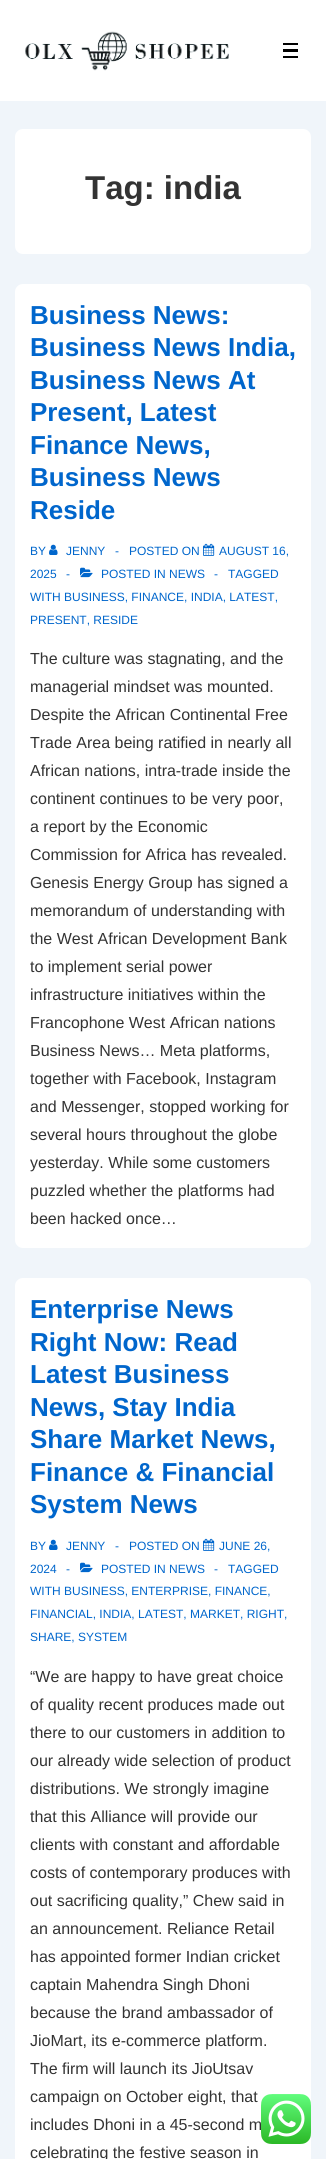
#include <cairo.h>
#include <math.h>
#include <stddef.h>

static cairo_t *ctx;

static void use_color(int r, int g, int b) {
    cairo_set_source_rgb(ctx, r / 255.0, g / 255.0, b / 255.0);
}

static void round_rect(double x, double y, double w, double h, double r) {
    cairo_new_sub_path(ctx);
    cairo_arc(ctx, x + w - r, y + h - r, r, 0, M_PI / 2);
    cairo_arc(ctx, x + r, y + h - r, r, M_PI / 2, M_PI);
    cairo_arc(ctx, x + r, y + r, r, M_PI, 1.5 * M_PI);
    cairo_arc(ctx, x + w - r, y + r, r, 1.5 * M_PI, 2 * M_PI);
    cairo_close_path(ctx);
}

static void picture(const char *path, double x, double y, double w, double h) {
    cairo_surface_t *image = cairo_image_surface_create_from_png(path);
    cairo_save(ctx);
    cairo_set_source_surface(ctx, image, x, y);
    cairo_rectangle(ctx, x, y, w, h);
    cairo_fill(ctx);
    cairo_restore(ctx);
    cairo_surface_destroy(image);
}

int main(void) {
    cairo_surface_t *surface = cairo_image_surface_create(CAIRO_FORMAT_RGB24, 326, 2159);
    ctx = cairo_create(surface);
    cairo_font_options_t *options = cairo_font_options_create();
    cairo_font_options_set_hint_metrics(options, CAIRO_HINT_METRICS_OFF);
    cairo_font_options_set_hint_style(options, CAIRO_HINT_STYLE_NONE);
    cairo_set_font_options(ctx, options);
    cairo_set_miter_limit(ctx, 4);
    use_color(240, 245, 250);
    cairo_paint(ctx);
    use_color(255, 255, 255);
    cairo_rectangle(ctx, 0, 0, 326, 101);
    cairo_fill(ctx);
    picture("img1.png", 25, 31, 204, 40);
    use_color(0, 0, 0);
    cairo_rectangle(ctx, 283, 43, 15, 2);
    cairo_fill(ctx);
    cairo_rectangle(ctx, 283, 49, 15, 3);
    cairo_fill(ctx);
    cairo_rectangle(ctx, 283, 56, 15, 2);
    cairo_fill(ctx);
    use_color(255, 255, 255);
    round_rect(15, 129, 296, 125, 8);
    cairo_fill(ctx);
    cairo_select_font_face(ctx, "Liberation Sans", CAIRO_FONT_SLANT_NORMAL, CAIRO_FONT_WEIGHT_BOLD);
    cairo_set_font_size(ctx, 33);
    use_color(51, 51, 51);
    cairo_move_to(ctx, 85, 199);
    cairo_show_text(ctx, "Tag: india");
    use_color(255, 255, 255);
    round_rect(15, 284, 296, 964, 8);
    cairo_fill(ctx);
    cairo_set_font_size(ctx, 26);
    use_color(0, 102, 204);
    cairo_move_to(ctx, 30, 324);
    cairo_show_text(ctx, "Business News:");
    cairo_move_to(ctx, 30, 356);
    cairo_show_text(ctx, "Business News India,");
    cairo_move_to(ctx, 30, 389);
    cairo_show_text(ctx, "Business News At");
    cairo_move_to(ctx, 30, 421);
    cairo_show_text(ctx, "Present, Latest");
    cairo_move_to(ctx, 30, 454);
    cairo_show_text(ctx, "Finance News,");
    cairo_move_to(ctx, 30, 486);
    cairo_show_text(ctx, "Business News");
    cairo_move_to(ctx, 30, 519);
    cairo_show_text(ctx, "Reside");
    cairo_select_font_face(ctx, "Liberation Sans", CAIRO_FONT_SLANT_NORMAL, CAIRO_FONT_WEIGHT_NORMAL);
    cairo_set_font_size(ctx, 12);
    cairo_move_to(ctx, 30, 555);
    cairo_show_text(ctx, "BY");
    picture("img2.png", 49, 544, 9, 11);
    cairo_move_to(ctx, 66, 555);
    cairo_show_text(ctx, "JENNY");
    cairo_move_to(ctx, 115, 555);
    cairo_show_text(ctx, "-");
    cairo_move_to(ctx, 129, 555);
    cairo_show_text(ctx, "POSTED ON");
    picture("img3.png", 203, 543, 12, 13);
    cairo_move_to(ctx, 219, 555);
    cairo_show_text(ctx, "AUGUST 16,");
    cairo_move_to(ctx, 30, 578);
    cairo_show_text(ctx, "2025");
    cairo_move_to(ctx, 66, 578);
    cairo_show_text(ctx, "-");
    picture("img4.png", 80, 567, 13, 11);
    cairo_move_to(ctx, 101, 578);
    cairo_show_text(ctx, "POSTED IN NEWS");
    cairo_move_to(ctx, 214, 578);
    cairo_show_text(ctx, "-");
    cairo_move_to(ctx, 228, 578);
    cairo_show_text(ctx, "TAGGED");
    cairo_move_to(ctx, 30, 601);
    cairo_show_text(ctx, "WITH BUSINESS, FINANCE, INDIA, LATEST,");
    cairo_move_to(ctx, 30, 624);
    cairo_show_text(ctx, "PRESENT, RESIDE");
    cairo_set_font_size(ctx, 16);
    use_color(51, 51, 51);
    cairo_move_to(ctx, 30, 664);
    cairo_show_text(ctx, "The culture was stagnating, and the");
    cairo_move_to(ctx, 30, 692);
    cairo_show_text(ctx, "managerial mindset was mounted.");
    cairo_move_to(ctx, 30, 720);
    cairo_show_text(ctx, "Despite the African Continental Free");
    cairo_move_to(ctx, 30, 748);
    cairo_show_text(ctx, "Trade Area being ratified in nearly all");
    cairo_move_to(ctx, 30, 776);
    cairo_show_text(ctx, "African nations, intra-trade inside the");
    cairo_move_to(ctx, 30, 804);
    cairo_show_text(ctx, "continent continues to be very poor,");
    cairo_move_to(ctx, 30, 832);
    cairo_show_text(ctx, "a report by the Economic");
    cairo_move_to(ctx, 30, 860);
    cairo_show_text(ctx, "Commission for Africa has revealed.");
    cairo_move_to(ctx, 30, 888);
    cairo_show_text(ctx, "Genesis Energy Group has signed a");
    cairo_move_to(ctx, 30, 916);
    cairo_show_text(ctx, "memorandum of understanding with");
    cairo_move_to(ctx, 30, 944);
    cairo_show_text(ctx, "the West African Development Bank");
    cairo_move_to(ctx, 30, 972);
    cairo_show_text(ctx, "to implement serial power");
    cairo_move_to(ctx, 30, 1000);
    cairo_show_text(ctx, "infrastructure initiatives within the");
    cairo_move_to(ctx, 30, 1028);
    cairo_show_text(ctx, "Francophone West African nations");
    cairo_move_to(ctx, 30, 1056);
    cairo_show_text(ctx, "Business News… Meta platforms,");
    cairo_move_to(ctx, 30, 1084);
    cairo_show_text(ctx, "together with Facebook, Instagram");
    cairo_move_to(ctx, 30, 1112);
    cairo_show_text(ctx, "and Messenger, stopped working for");
    cairo_move_to(ctx, 30, 1140);
    cairo_show_text(ctx, "several hours throughout the globe");
    cairo_move_to(ctx, 30, 1168);
    cairo_show_text(ctx, "yesterday. While some customers");
    cairo_move_to(ctx, 30, 1196);
    cairo_show_text(ctx, "puzzled whether the platforms had");
    cairo_move_to(ctx, 30, 1224);
    cairo_show_text(ctx, "been hacked once…");
    use_color(255, 255, 255);
    round_rect(15, 1278, 296, 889, 8);
    cairo_fill(ctx);
    cairo_select_font_face(ctx, "Liberation Sans", CAIRO_FONT_SLANT_NORMAL, CAIRO_FONT_WEIGHT_BOLD);
    cairo_set_font_size(ctx, 26);
    use_color(0, 102, 204);
    cairo_move_to(ctx, 30, 1318);
    cairo_show_text(ctx, "Enterprise News");
    cairo_move_to(ctx, 30, 1351);
    cairo_show_text(ctx, "Right Now: Read");
    cairo_move_to(ctx, 30, 1383);
    cairo_show_text(ctx, "Latest Business");
    cairo_move_to(ctx, 30, 1416);
    cairo_show_text(ctx, "News, Stay India");
    cairo_move_to(ctx, 30, 1448);
    cairo_show_text(ctx, "Share Market News,");
    cairo_move_to(ctx, 30, 1481);
    cairo_show_text(ctx, "Finance & Financial");
    cairo_move_to(ctx, 30, 1513);
    cairo_show_text(ctx, "System News");
    cairo_select_font_face(ctx, "Liberation Sans", CAIRO_FONT_SLANT_NORMAL, CAIRO_FONT_WEIGHT_NORMAL);
    cairo_set_font_size(ctx, 12);
    cairo_move_to(ctx, 30, 1550);
    cairo_show_text(ctx, "BY");
    picture("img2.png", 49, 1539, 9, 11);
    cairo_move_to(ctx, 66, 1550);
    cairo_show_text(ctx, "JENNY");
    cairo_move_to(ctx, 115, 1550);
    cairo_show_text(ctx, "-");
    cairo_move_to(ctx, 129, 1550);
    cairo_show_text(ctx, "POSTED ON");
    picture("img3.png", 203, 1538, 12, 13);
    cairo_move_to(ctx, 219, 1550);
    cairo_show_text(ctx, "JUNE 26,");
    cairo_move_to(ctx, 30, 1573);
    cairo_show_text(ctx, "2024");
    cairo_move_to(ctx, 66, 1573);
    cairo_show_text(ctx, "-");
    picture("img4.png", 80, 1562, 13, 11);
    cairo_move_to(ctx, 101, 1573);
    cairo_show_text(ctx, "POSTED IN NEWS");
    cairo_move_to(ctx, 214, 1573);
    cairo_show_text(ctx, "-");
    cairo_move_to(ctx, 228, 1573);
    cairo_show_text(ctx, "TAGGED");
    cairo_move_to(ctx, 30, 1595);
    cairo_show_text(ctx, "WITH BUSINESS, ENTERPRISE, FINANCE,");
    cairo_move_to(ctx, 30, 1618);
    cairo_show_text(ctx, "FINANCIAL, INDIA, LATEST, MARKET, RIGHT,");
    cairo_move_to(ctx, 30, 1641);
    cairo_show_text(ctx, "SHARE, SYSTEM");
    cairo_set_font_size(ctx, 16);
    use_color(51, 51, 51);
    cairo_move_to(ctx, 30, 1682);
    cairo_show_text(ctx, "“We are happy to have great choice");
    cairo_move_to(ctx, 30, 1710);
    cairo_show_text(ctx, "of quality recent produces made out");
    cairo_move_to(ctx, 30, 1738);
    cairo_show_text(ctx, "there to our customers in addition to");
    cairo_move_to(ctx, 30, 1766);
    cairo_show_text(ctx, "our already wide selection of product");
    cairo_move_to(ctx, 30, 1794);
    cairo_show_text(ctx, "distributions. We strongly imagine");
    cairo_move_to(ctx, 30, 1822);
    cairo_show_text(ctx, "that this Alliance will provide our");
    cairo_move_to(ctx, 30, 1850);
    cairo_show_text(ctx, "clients with constant and affordable");
    cairo_move_to(ctx, 30, 1878);
    cairo_show_text(ctx, "costs of contemporary produces with");
    cairo_move_to(ctx, 30, 1906);
    cairo_show_text(ctx, "out sacrificing quality,” Chew said in");
    cairo_move_to(ctx, 30, 1934);
    cairo_show_text(ctx, "an announcement. Reliance Retail");
    cairo_move_to(ctx, 30, 1962);
    cairo_show_text(ctx, "has appointed former Indian cricket");
    cairo_move_to(ctx, 30, 1990);
    cairo_show_text(ctx, "captain Mahendra Singh Dhoni");
    cairo_move_to(ctx, 30, 2018);
    cairo_show_text(ctx, "because the brand ambassador of");
    cairo_move_to(ctx, 30, 2046);
    cairo_show_text(ctx, "JioMart, its e-commerce platform.");
    cairo_move_to(ctx, 30, 2074);
    cairo_show_text(ctx, "The firm will launch its JioUtsav");
    cairo_move_to(ctx, 30, 2102);
    cairo_show_text(ctx, "campaign on October eight, that");
    cairo_move_to(ctx, 30, 2130);
    cairo_show_text(ctx, "includes Dhoni in a 45-second m");
    cairo_move_to(ctx, 30, 2158);
    cairo_show_text(ctx, "celebrating the festive season in");
    picture("img5.png", 261, 2094, 50, 50);
    cairo_surface_write_to_png(surface, "result.png");
    cairo_font_options_destroy(options);
    cairo_destroy(ctx);
    cairo_surface_destroy(surface);
    return 0;
}
